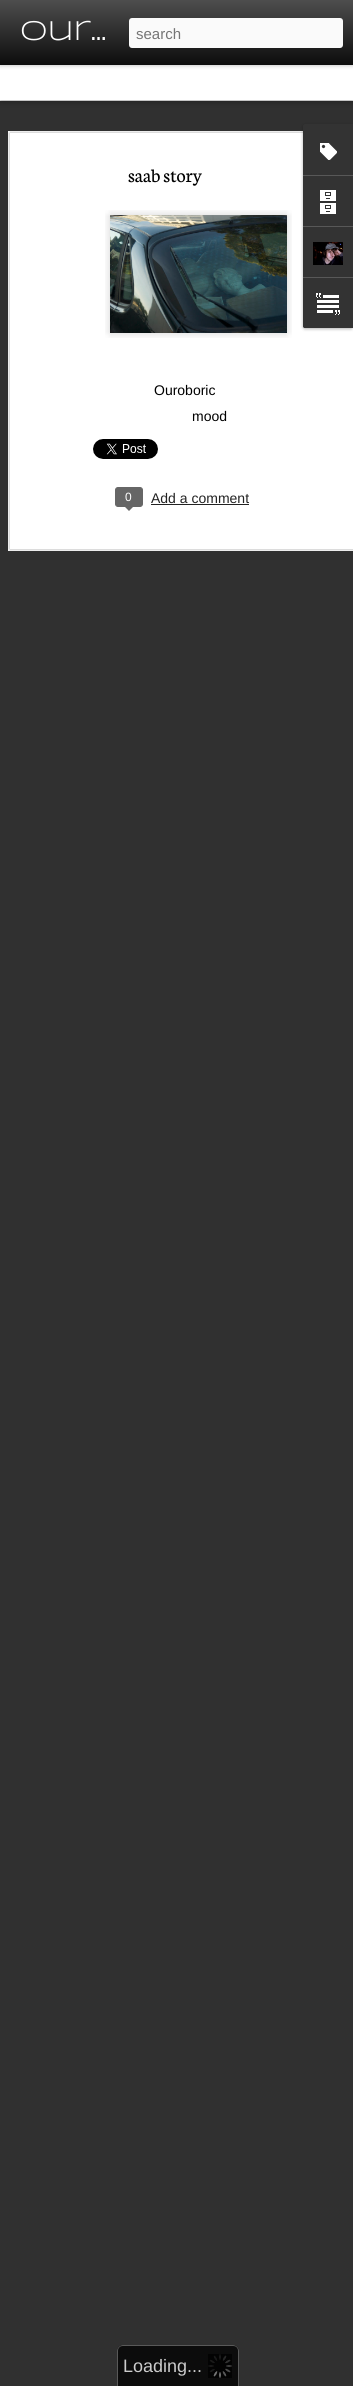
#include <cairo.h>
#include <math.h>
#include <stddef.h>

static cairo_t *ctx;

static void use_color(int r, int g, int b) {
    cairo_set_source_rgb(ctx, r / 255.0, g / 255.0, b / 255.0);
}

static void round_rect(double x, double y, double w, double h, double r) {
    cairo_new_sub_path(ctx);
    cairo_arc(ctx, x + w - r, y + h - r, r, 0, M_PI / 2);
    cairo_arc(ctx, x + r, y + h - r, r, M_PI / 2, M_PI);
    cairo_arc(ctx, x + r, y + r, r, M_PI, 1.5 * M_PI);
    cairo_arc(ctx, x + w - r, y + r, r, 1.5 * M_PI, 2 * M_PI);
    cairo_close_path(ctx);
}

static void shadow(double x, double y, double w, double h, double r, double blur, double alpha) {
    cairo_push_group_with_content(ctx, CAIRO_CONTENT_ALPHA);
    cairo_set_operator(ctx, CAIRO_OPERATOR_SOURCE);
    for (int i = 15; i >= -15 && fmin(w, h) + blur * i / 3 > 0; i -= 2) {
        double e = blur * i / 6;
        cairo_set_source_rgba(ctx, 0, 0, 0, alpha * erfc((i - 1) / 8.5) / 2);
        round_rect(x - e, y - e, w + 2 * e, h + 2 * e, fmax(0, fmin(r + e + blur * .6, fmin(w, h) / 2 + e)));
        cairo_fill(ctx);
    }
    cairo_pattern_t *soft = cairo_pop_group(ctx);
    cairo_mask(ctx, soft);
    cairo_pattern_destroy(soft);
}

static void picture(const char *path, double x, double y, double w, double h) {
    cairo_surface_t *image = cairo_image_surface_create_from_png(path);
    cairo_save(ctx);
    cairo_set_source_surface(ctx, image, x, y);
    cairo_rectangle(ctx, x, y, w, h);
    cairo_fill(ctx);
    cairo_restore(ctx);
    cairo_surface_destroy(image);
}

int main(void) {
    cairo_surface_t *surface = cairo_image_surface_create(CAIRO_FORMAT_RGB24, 353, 2386);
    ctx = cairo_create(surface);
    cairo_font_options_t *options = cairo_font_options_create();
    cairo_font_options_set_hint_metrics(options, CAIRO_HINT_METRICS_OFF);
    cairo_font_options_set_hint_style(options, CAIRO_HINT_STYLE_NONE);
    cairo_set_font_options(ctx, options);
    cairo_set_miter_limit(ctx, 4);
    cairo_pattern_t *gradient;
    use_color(255, 255, 255);
    cairo_paint(ctx);
    use_color(48, 48, 48);
    cairo_rectangle(ctx, 0, 101, 353, 2285);
    cairo_fill(ctx);
    use_color(0, 0, 0);
    shadow(0, 65, 353, 35, 0, 4, 0.5);
    use_color(255, 255, 255);
    cairo_rectangle(ctx, 0, 65, 353, 35);
    cairo_fill(ctx);
    use_color(0, 0, 0);
    shadow(0, 0, 353, 65, 0, 2.5, 0.3);
    gradient = cairo_pattern_create_linear(0, 0, 0, 65);
    cairo_pattern_add_color_stop_rgba(gradient, 0, 0.302, 0.302, 0.302, 1);
    cairo_pattern_add_color_stop_rgba(gradient, 1, 0.051, 0.051, 0.051, 1);
    cairo_set_source(ctx, gradient);
    cairo_pattern_destroy(gradient);
    cairo_rectangle(ctx, 0, 0, 353, 65);
    cairo_fill(ctx);
    cairo_select_font_face(ctx, "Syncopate", CAIRO_FONT_SLANT_NORMAL, CAIRO_FONT_WEIGHT_NORMAL);
    cairo_set_font_size(ctx, 28);
    use_color(255, 255, 255);
    cairo_move_to(ctx, 20, 40);
    cairo_show_text(ctx, "Our…");
    use_color(250, 250, 250);
    round_rect(129, 18, 214, 30, 3);
    cairo_fill(ctx);
    cairo_select_font_face(ctx, "Liberation Sans", CAIRO_FONT_SLANT_NORMAL, CAIRO_FONT_WEIGHT_NORMAL);
    cairo_set_font_size(ctx, 15);
    use_color(117, 117, 117);
    cairo_move_to(ctx, 136, 39);
    cairo_show_text(ctx, "search");
    use_color(255, 255, 255);
    cairo_rectangle(ctx, 8, 131, 345, 420);
    cairo_fill(ctx);
    picture("img1.png", 8, 131, 345, 420);
    cairo_select_font_face(ctx, "Neuton", CAIRO_FONT_SLANT_NORMAL, CAIRO_FONT_WEIGHT_NORMAL);
    cairo_set_font_size(ctx, 20);
    use_color(0, 0, 0);
    cairo_move_to(ctx, 128, 182);
    cairo_show_text(ctx, "saab story");
    picture("img2.png", 105, 210, 187, 128);
    cairo_select_font_face(ctx, "Liberation Sans", CAIRO_FONT_SLANT_NORMAL, CAIRO_FONT_WEIGHT_NORMAL);
    cairo_set_font_size(ctx, 14);
    cairo_move_to(ctx, 154, 395);
    cairo_show_text(ctx, "Ouroboric");
    cairo_move_to(ctx, 192, 421);
    cairo_show_text(ctx, "mood");
    picture("img3.png", 93, 439, 65, 20);
    use_color(102, 102, 102);
    round_rect(115.5, 487.5, 27, 19, 2.5);
    cairo_fill_preserve(ctx);
    cairo_set_line_width(ctx, 1);
    cairo_stroke(ctx);
    cairo_set_font_size(ctx, 12);
    use_color(255, 255, 255);
    cairo_move_to(ctx, 125, 501);
    cairo_show_text(ctx, "0");
    use_color(102, 102, 102);
    cairo_new_path(ctx);
    cairo_move_to(ctx, 124, 506);
    cairo_line_to(ctx, 134, 506);
    cairo_line_to(ctx, 129, 511);
    cairo_close_path(ctx);
    cairo_fill(ctx);
    cairo_set_font_size(ctx, 14);
    use_color(34, 34, 34);
    cairo_move_to(ctx, 151, 503);
    cairo_show_text(ctx, "Add a comment");
    cairo_rectangle(ctx, 151, 504, 98, 1);
    cairo_fill(ctx);
    use_color(0, 0, 0);
    shadow(303, 125, 50, 204, 2, 1.5, 0.3);
    use_color(51, 51, 51);
    cairo_new_path(ctx);
    cairo_move_to(ctx, 305, 124);
    cairo_line_to(ctx, 353, 124);
    cairo_line_to(ctx, 353, 328);
    cairo_line_to(ctx, 305, 328);
    cairo_curve_to(ctx, 304, 328, 303, 327, 303, 326);
    cairo_line_to(ctx, 303, 126);
    cairo_curve_to(ctx, 303, 125, 304, 124, 305, 124);
    cairo_close_path(ctx);
    cairo_fill(ctx);
    picture("img4.png", 320, 143, 17, 17);
    use_color(88, 88, 88);
    cairo_rectangle(ctx, 303, 175, 50, 1);
    cairo_fill(ctx);
    picture("img5.png", 320, 190, 16, 24);
    cairo_rectangle(ctx, 303, 226, 50, 1);
    cairo_fill(ctx);
    picture("img6.png", 313, 242, 30, 23);
    use_color(51, 51, 51);
    cairo_new_path(ctx);
    cairo_move_to(ctx, 303, 277);
    cairo_line_to(ctx, 353, 277);
    cairo_line_to(ctx, 353, 328);
    cairo_line_to(ctx, 305, 328);
    cairo_curve_to(ctx, 304, 328, 303, 327, 303, 326);
    cairo_close_path(ctx);
    cairo_fill(ctx);
    use_color(88, 88, 88);
    cairo_rectangle(ctx, 303, 277, 50, 1);
    cairo_fill(ctx);
    picture("img7.png", 316, 293, 24, 22);
    use_color(12, 12, 12);
    cairo_new_path(ctx);
    cairo_move_to(ctx, 123, 2345);
    cairo_line_to(ctx, 233, 2345);
    cairo_curve_to(ctx, 236.5, 2345, 239, 2347.5, 239, 2351);
    cairo_line_to(ctx, 239, 2386);
    cairo_line_to(ctx, 117, 2386);
    cairo_line_to(ctx, 117, 2351);
    cairo_curve_to(ctx, 117, 2347.5, 119.5, 2345, 123, 2345);
    cairo_close_path(ctx);
    cairo_fill(ctx);
    use_color(89, 89, 89);
    cairo_set_fill_rule(ctx, CAIRO_FILL_RULE_EVEN_ODD);
    cairo_new_path(ctx);
    cairo_move_to(ctx, 123, 2345);
    cairo_line_to(ctx, 233, 2345);
    cairo_curve_to(ctx, 236, 2345, 239, 2348, 239, 2351);
    cairo_line_to(ctx, 239, 2386);
    cairo_line_to(ctx, 117, 2386);
    cairo_line_to(ctx, 117, 2351);
    cairo_curve_to(ctx, 117, 2348, 120, 2345, 123, 2345);
    cairo_close_path(ctx);
    cairo_move_to(ctx, 123, 2346);
    cairo_line_to(ctx, 233, 2346);
    cairo_curve_to(ctx, 236, 2346, 238, 2348, 238, 2351);
    cairo_line_to(ctx, 238, 2386);
    cairo_line_to(ctx, 118, 2386);
    cairo_line_to(ctx, 118, 2351);
    cairo_curve_to(ctx, 118, 2348, 120, 2346, 123, 2346);
    cairo_close_path(ctx);
    cairo_fill(ctx);
    picture("img8.png", 208, 2354, 24, 24);
    cairo_set_font_size(ctx, 18);
    use_color(203, 203, 203);
    cairo_move_to(ctx, 123, 2372);
    cairo_show_text(ctx, "Loading...");
    cairo_surface_write_to_png(surface, "result.png");
    cairo_font_options_destroy(options);
    cairo_destroy(ctx);
    cairo_surface_destroy(surface);
    return 0;
}
